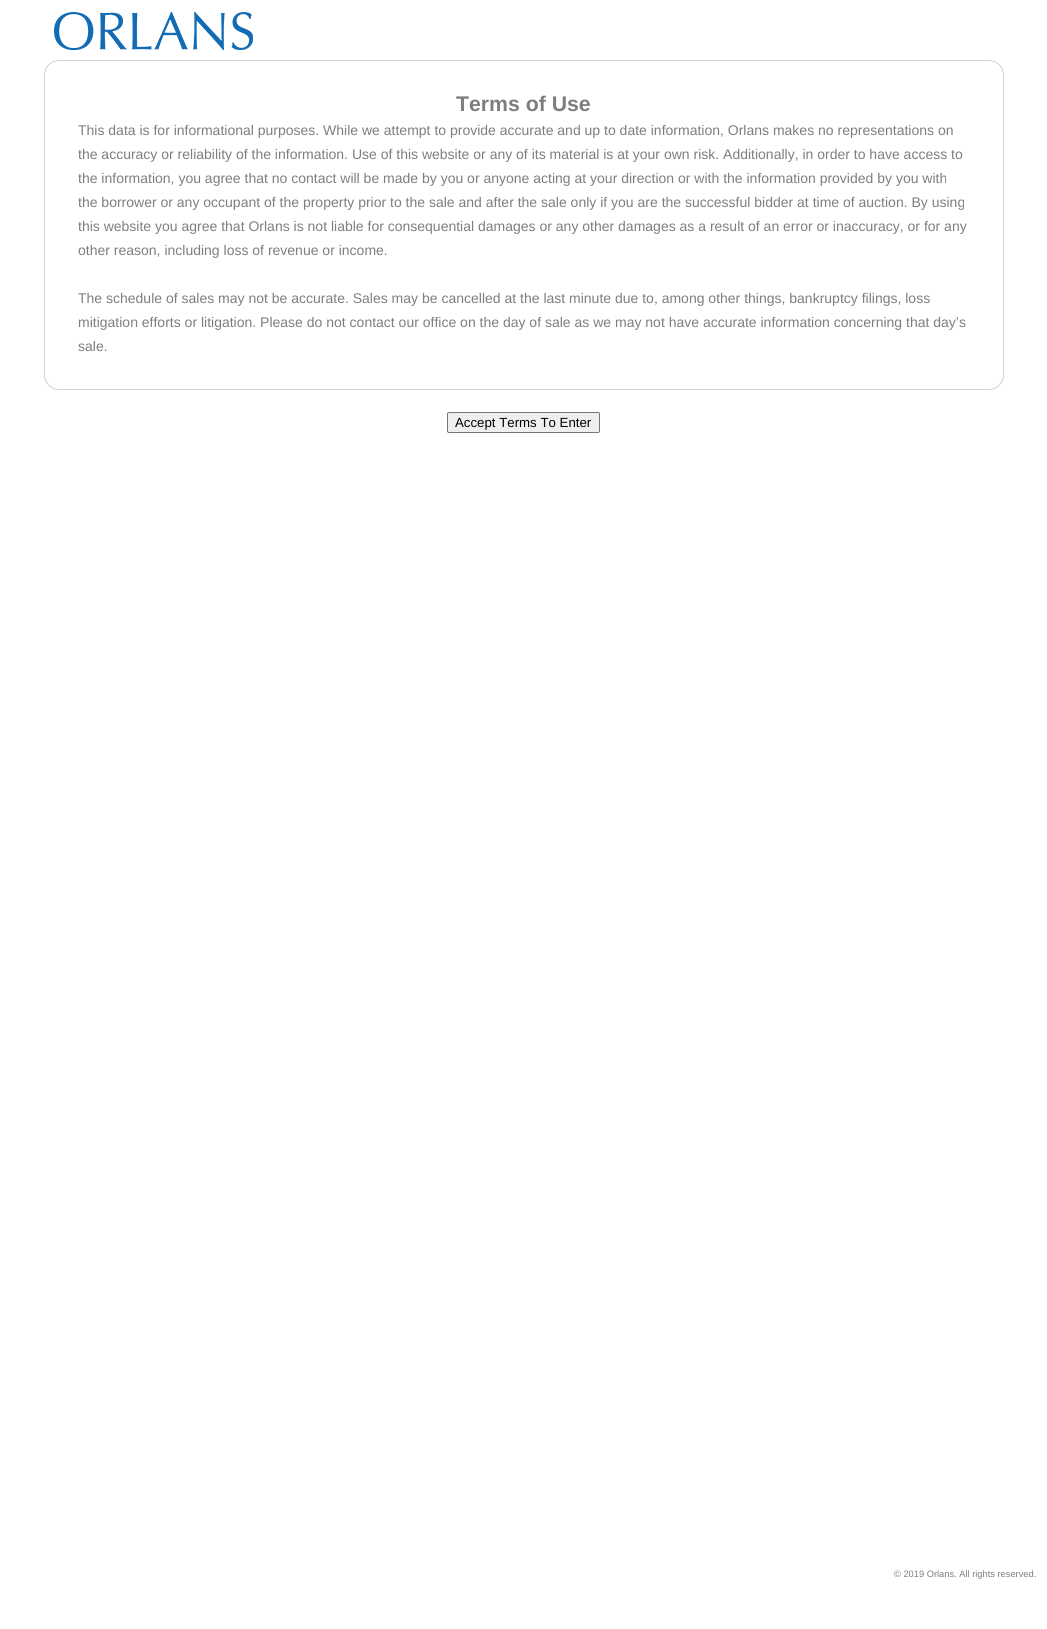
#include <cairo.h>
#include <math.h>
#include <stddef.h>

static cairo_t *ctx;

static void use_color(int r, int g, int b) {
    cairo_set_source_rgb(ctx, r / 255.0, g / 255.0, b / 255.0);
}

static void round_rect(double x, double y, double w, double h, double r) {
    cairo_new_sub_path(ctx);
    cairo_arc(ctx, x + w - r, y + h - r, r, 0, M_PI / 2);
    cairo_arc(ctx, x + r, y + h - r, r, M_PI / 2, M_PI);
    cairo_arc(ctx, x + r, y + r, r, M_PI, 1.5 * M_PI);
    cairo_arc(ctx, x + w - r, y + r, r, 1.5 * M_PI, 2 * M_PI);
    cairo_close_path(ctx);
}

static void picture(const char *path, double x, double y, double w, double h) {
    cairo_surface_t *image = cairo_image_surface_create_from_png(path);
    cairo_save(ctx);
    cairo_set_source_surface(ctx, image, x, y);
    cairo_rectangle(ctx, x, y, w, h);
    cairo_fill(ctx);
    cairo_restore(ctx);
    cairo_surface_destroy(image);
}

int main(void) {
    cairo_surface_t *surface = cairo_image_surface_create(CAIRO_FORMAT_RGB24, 1047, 1629);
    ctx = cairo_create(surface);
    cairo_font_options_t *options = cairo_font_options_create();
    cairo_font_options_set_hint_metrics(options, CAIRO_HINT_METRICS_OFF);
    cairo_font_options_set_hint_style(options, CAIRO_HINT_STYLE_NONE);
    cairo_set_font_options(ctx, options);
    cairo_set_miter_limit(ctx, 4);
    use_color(255, 255, 255);
    cairo_paint(ctx);
    picture("img1.png", 54, 12, 199, 38);
    round_rect(44.5, 60.5, 959, 329, 14.5);
    use_color(210, 210, 207);
    cairo_set_line_width(ctx, 1);
    cairo_stroke(ctx);
    cairo_select_font_face(ctx, "Liberation Sans", CAIRO_FONT_SLANT_NORMAL, CAIRO_FONT_WEIGHT_BOLD);
    cairo_set_font_size(ctx, 21.25);
    use_color(126, 126, 126);
    cairo_move_to(ctx, 456, 111);
    cairo_show_text(ctx, "Terms of Use");
    cairo_select_font_face(ctx, "Liberation Sans", CAIRO_FONT_SLANT_NORMAL, CAIRO_FONT_WEIGHT_NORMAL);
    cairo_set_font_size(ctx, 14);
    cairo_move_to(ctx, 78, 135);
    cairo_show_text(ctx, "This data is for informational purposes. While we attempt to provide accurate and up to date information, Orlans makes no representations on");
    cairo_move_to(ctx, 78, 159);
    cairo_show_text(ctx, "the accuracy or reliability of the information. Use of this website or any of its material is at your own risk. Additionally, in order to have access to");
    cairo_move_to(ctx, 78, 183);
    cairo_show_text(ctx, "the information, you agree that no contact will be made by you or anyone acting at your direction or with the information provided by you with");
    cairo_move_to(ctx, 78, 207);
    cairo_show_text(ctx, "the borrower or any occupant of the property prior to the sale and after the sale only if you are the successful bidder at time of auction. By using");
    cairo_move_to(ctx, 78, 231);
    cairo_show_text(ctx, "this website you agree that Orlans is not liable for consequential damages or any other damages as a result of an error or inaccuracy, or for any");
    cairo_move_to(ctx, 78, 255);
    cairo_show_text(ctx, "other reason, including loss of revenue or income.");
    cairo_move_to(ctx, 78, 303);
    cairo_show_text(ctx, "The schedule of sales may not be accurate. Sales may be cancelled at the last minute due to, among other things, bankruptcy filings, loss");
    cairo_move_to(ctx, 78, 327);
    cairo_show_text(ctx, "mitigation efforts or litigation. Please do not contact our office on the day of sale as we may not have accurate information concerning that day’s");
    cairo_move_to(ctx, 78, 351);
    cairo_show_text(ctx, "sale.");
    use_color(239, 239, 239);
    round_rect(447.5, 412.5, 152, 20, 1.5);
    cairo_fill_preserve(ctx);
    use_color(118, 118, 118);
    cairo_stroke(ctx);
    cairo_set_font_size(ctx, 13.25);
    use_color(0, 0, 0);
    cairo_move_to(ctx, 455, 427);
    cairo_show_text(ctx, "Accept Terms To Enter");
    cairo_set_font_size(ctx, 9.3);
    use_color(126, 126, 126);
    cairo_move_to(ctx, 894, 1577);
    cairo_show_text(ctx, "© 2019 Orlans. All rights reserved.");
    cairo_surface_write_to_png(surface, "result.png");
    cairo_font_options_destroy(options);
    cairo_destroy(ctx);
    cairo_surface_destroy(surface);
    return 0;
}
